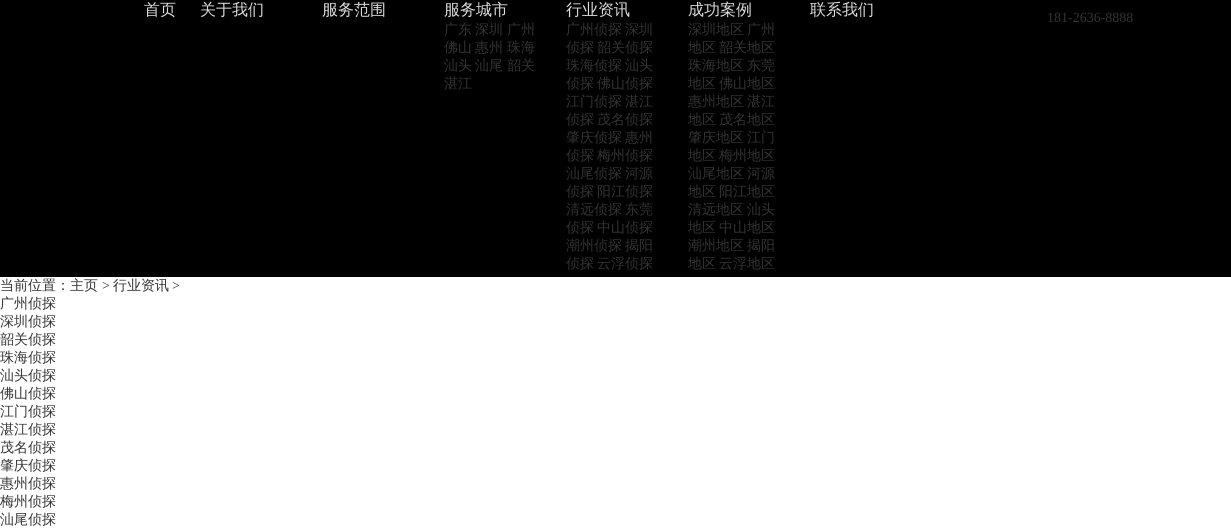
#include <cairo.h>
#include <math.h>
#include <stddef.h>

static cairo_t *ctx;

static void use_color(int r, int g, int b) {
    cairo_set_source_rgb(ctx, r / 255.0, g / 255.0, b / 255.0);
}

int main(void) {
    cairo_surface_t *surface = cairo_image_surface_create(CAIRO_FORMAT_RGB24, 1231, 528);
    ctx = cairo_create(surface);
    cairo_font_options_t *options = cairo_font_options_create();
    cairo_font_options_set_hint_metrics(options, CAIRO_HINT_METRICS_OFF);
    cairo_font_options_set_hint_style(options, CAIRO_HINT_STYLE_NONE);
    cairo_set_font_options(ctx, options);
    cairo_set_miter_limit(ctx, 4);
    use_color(255, 255, 255);
    cairo_paint(ctx);
    use_color(0, 0, 0);
    cairo_rectangle(ctx, 0, 0, 1231, 277);
    cairo_fill(ctx);
    cairo_select_font_face(ctx, "WenQuanYi Zen Hei Medium", CAIRO_FONT_SLANT_NORMAL, CAIRO_FONT_WEIGHT_NORMAL);
    cairo_set_font_size(ctx, 16);
    use_color(221, 221, 221);
    cairo_move_to(ctx, 144, 15);
    cairo_show_text(ctx, "首页");
    cairo_move_to(ctx, 200, 15);
    cairo_show_text(ctx, "关于我们");
    cairo_move_to(ctx, 322, 15);
    cairo_show_text(ctx, "服务范围");
    cairo_move_to(ctx, 444, 15);
    cairo_show_text(ctx, "服务城市");
    cairo_set_font_size(ctx, 14);
    use_color(51, 51, 51);
    cairo_move_to(ctx, 444, 34);
    cairo_show_text(ctx, "广东");
    cairo_move_to(ctx, 475, 34);
    cairo_show_text(ctx, "深圳");
    cairo_move_to(ctx, 507, 34);
    cairo_show_text(ctx, "广州");
    cairo_move_to(ctx, 444, 52);
    cairo_show_text(ctx, "佛山");
    cairo_move_to(ctx, 475, 52);
    cairo_show_text(ctx, "惠州");
    cairo_move_to(ctx, 507, 52);
    cairo_show_text(ctx, "珠海");
    cairo_move_to(ctx, 444, 70);
    cairo_show_text(ctx, "汕头");
    cairo_move_to(ctx, 475, 70);
    cairo_show_text(ctx, "汕尾");
    cairo_move_to(ctx, 507, 70);
    cairo_show_text(ctx, "韶关");
    cairo_move_to(ctx, 444, 88);
    cairo_show_text(ctx, "湛江");
    cairo_set_font_size(ctx, 16);
    use_color(221, 221, 221);
    cairo_move_to(ctx, 566, 15);
    cairo_show_text(ctx, "行业资讯");
    cairo_set_font_size(ctx, 14);
    use_color(51, 51, 51);
    cairo_move_to(ctx, 566, 34);
    cairo_show_text(ctx, "广州侦探");
    cairo_move_to(ctx, 625, 34);
    cairo_show_text(ctx, "深圳");
    cairo_move_to(ctx, 566, 52);
    cairo_show_text(ctx, "侦探");
    cairo_move_to(ctx, 597, 52);
    cairo_show_text(ctx, "韶关侦探");
    cairo_move_to(ctx, 566, 70);
    cairo_show_text(ctx, "珠海侦探");
    cairo_move_to(ctx, 625, 70);
    cairo_show_text(ctx, "汕头");
    cairo_move_to(ctx, 566, 88);
    cairo_show_text(ctx, "侦探");
    cairo_move_to(ctx, 597, 88);
    cairo_show_text(ctx, "佛山侦探");
    cairo_move_to(ctx, 566, 106);
    cairo_show_text(ctx, "江门侦探");
    cairo_move_to(ctx, 625, 106);
    cairo_show_text(ctx, "湛江");
    cairo_move_to(ctx, 566, 124);
    cairo_show_text(ctx, "侦探");
    cairo_move_to(ctx, 597, 124);
    cairo_show_text(ctx, "茂名侦探");
    cairo_move_to(ctx, 566, 142);
    cairo_show_text(ctx, "肇庆侦探");
    cairo_move_to(ctx, 625, 142);
    cairo_show_text(ctx, "惠州");
    cairo_move_to(ctx, 566, 160);
    cairo_show_text(ctx, "侦探");
    cairo_move_to(ctx, 597, 160);
    cairo_show_text(ctx, "梅州侦探");
    cairo_move_to(ctx, 566, 178);
    cairo_show_text(ctx, "汕尾侦探");
    cairo_move_to(ctx, 625, 178);
    cairo_show_text(ctx, "河源");
    cairo_move_to(ctx, 566, 196);
    cairo_show_text(ctx, "侦探");
    cairo_move_to(ctx, 597, 196);
    cairo_show_text(ctx, "阳江侦探");
    cairo_move_to(ctx, 566, 214);
    cairo_show_text(ctx, "清远侦探");
    cairo_move_to(ctx, 625, 214);
    cairo_show_text(ctx, "东莞");
    cairo_move_to(ctx, 566, 232);
    cairo_show_text(ctx, "侦探");
    cairo_move_to(ctx, 597, 232);
    cairo_show_text(ctx, "中山侦探");
    cairo_move_to(ctx, 566, 250);
    cairo_show_text(ctx, "潮州侦探");
    cairo_move_to(ctx, 625, 250);
    cairo_show_text(ctx, "揭阳");
    cairo_move_to(ctx, 566, 268);
    cairo_show_text(ctx, "侦探");
    cairo_move_to(ctx, 597, 268);
    cairo_show_text(ctx, "云浮侦探");
    cairo_set_font_size(ctx, 16);
    use_color(221, 221, 221);
    cairo_move_to(ctx, 688, 15);
    cairo_show_text(ctx, "成功案例");
    cairo_set_font_size(ctx, 14);
    use_color(51, 51, 51);
    cairo_move_to(ctx, 688, 34);
    cairo_show_text(ctx, "深圳地区");
    cairo_move_to(ctx, 747, 34);
    cairo_show_text(ctx, "广州");
    cairo_move_to(ctx, 688, 52);
    cairo_show_text(ctx, "地区");
    cairo_move_to(ctx, 719, 52);
    cairo_show_text(ctx, "韶关地区");
    cairo_move_to(ctx, 688, 70);
    cairo_show_text(ctx, "珠海地区");
    cairo_move_to(ctx, 747, 70);
    cairo_show_text(ctx, "东莞");
    cairo_move_to(ctx, 688, 88);
    cairo_show_text(ctx, "地区");
    cairo_move_to(ctx, 719, 88);
    cairo_show_text(ctx, "佛山地区");
    cairo_move_to(ctx, 688, 106);
    cairo_show_text(ctx, "惠州地区");
    cairo_move_to(ctx, 747, 106);
    cairo_show_text(ctx, "湛江");
    cairo_move_to(ctx, 688, 124);
    cairo_show_text(ctx, "地区");
    cairo_move_to(ctx, 719, 124);
    cairo_show_text(ctx, "茂名地区");
    cairo_move_to(ctx, 688, 142);
    cairo_show_text(ctx, "肇庆地区");
    cairo_move_to(ctx, 747, 142);
    cairo_show_text(ctx, "江门");
    cairo_move_to(ctx, 688, 160);
    cairo_show_text(ctx, "地区");
    cairo_move_to(ctx, 719, 160);
    cairo_show_text(ctx, "梅州地区");
    cairo_move_to(ctx, 688, 178);
    cairo_show_text(ctx, "汕尾地区");
    cairo_move_to(ctx, 747, 178);
    cairo_show_text(ctx, "河源");
    cairo_move_to(ctx, 688, 196);
    cairo_show_text(ctx, "地区");
    cairo_move_to(ctx, 719, 196);
    cairo_show_text(ctx, "阳江地区");
    cairo_move_to(ctx, 688, 214);
    cairo_show_text(ctx, "清远地区");
    cairo_move_to(ctx, 747, 214);
    cairo_show_text(ctx, "汕头");
    cairo_move_to(ctx, 688, 232);
    cairo_show_text(ctx, "地区");
    cairo_move_to(ctx, 719, 232);
    cairo_show_text(ctx, "中山地区");
    cairo_move_to(ctx, 688, 250);
    cairo_show_text(ctx, "潮州地区");
    cairo_move_to(ctx, 747, 250);
    cairo_show_text(ctx, "揭阳");
    cairo_move_to(ctx, 688, 268);
    cairo_show_text(ctx, "地区");
    cairo_move_to(ctx, 719, 268);
    cairo_show_text(ctx, "云浮地区");
    cairo_set_font_size(ctx, 16);
    use_color(221, 221, 221);
    cairo_move_to(ctx, 810, 15);
    cairo_show_text(ctx, "联系我们");
    cairo_select_font_face(ctx, "Liberation Serif", CAIRO_FONT_SLANT_NORMAL, CAIRO_FONT_WEIGHT_NORMAL);
    cairo_set_font_size(ctx, 14);
    use_color(51, 51, 51);
    cairo_move_to(ctx, 1047, 22);
    cairo_show_text(ctx, "181-2636-8888");
    cairo_select_font_face(ctx, "WenQuanYi Zen Hei Medium", CAIRO_FONT_SLANT_NORMAL, CAIRO_FONT_WEIGHT_NORMAL);
    cairo_move_to(ctx, 0, 290);
    cairo_show_text(ctx, "当前位置：主页");
    cairo_select_font_face(ctx, "Liberation Serif", CAIRO_FONT_SLANT_NORMAL, CAIRO_FONT_WEIGHT_NORMAL);
    cairo_move_to(ctx, 102, 290);
    cairo_show_text(ctx, ">");
    cairo_select_font_face(ctx, "WenQuanYi Zen Hei Medium", CAIRO_FONT_SLANT_NORMAL, CAIRO_FONT_WEIGHT_NORMAL);
    cairo_move_to(ctx, 113, 290);
    cairo_show_text(ctx, "行业资讯");
    cairo_select_font_face(ctx, "Liberation Serif", CAIRO_FONT_SLANT_NORMAL, CAIRO_FONT_WEIGHT_NORMAL);
    cairo_move_to(ctx, 172, 290);
    cairo_show_text(ctx, ">");
    cairo_select_font_face(ctx, "WenQuanYi Zen Hei Medium", CAIRO_FONT_SLANT_NORMAL, CAIRO_FONT_WEIGHT_NORMAL);
    cairo_move_to(ctx, 0, 308);
    cairo_show_text(ctx, "广州侦探");
    cairo_move_to(ctx, 0, 326);
    cairo_show_text(ctx, "深圳侦探");
    cairo_move_to(ctx, 0, 344);
    cairo_show_text(ctx, "韶关侦探");
    cairo_move_to(ctx, 0, 362);
    cairo_show_text(ctx, "珠海侦探");
    cairo_move_to(ctx, 0, 380);
    cairo_show_text(ctx, "汕头侦探");
    cairo_move_to(ctx, 0, 398);
    cairo_show_text(ctx, "佛山侦探");
    cairo_move_to(ctx, 0, 416);
    cairo_show_text(ctx, "江门侦探");
    cairo_move_to(ctx, 0, 434);
    cairo_show_text(ctx, "湛江侦探");
    cairo_move_to(ctx, 0, 452);
    cairo_show_text(ctx, "茂名侦探");
    cairo_move_to(ctx, 0, 470);
    cairo_show_text(ctx, "肇庆侦探");
    cairo_move_to(ctx, 0, 488);
    cairo_show_text(ctx, "惠州侦探");
    cairo_move_to(ctx, 0, 506);
    cairo_show_text(ctx, "梅州侦探");
    cairo_move_to(ctx, 0, 524);
    cairo_show_text(ctx, "汕尾侦探");
    cairo_surface_write_to_png(surface, "result.png");
    cairo_font_options_destroy(options);
    cairo_destroy(ctx);
    cairo_surface_destroy(surface);
    return 0;
}
